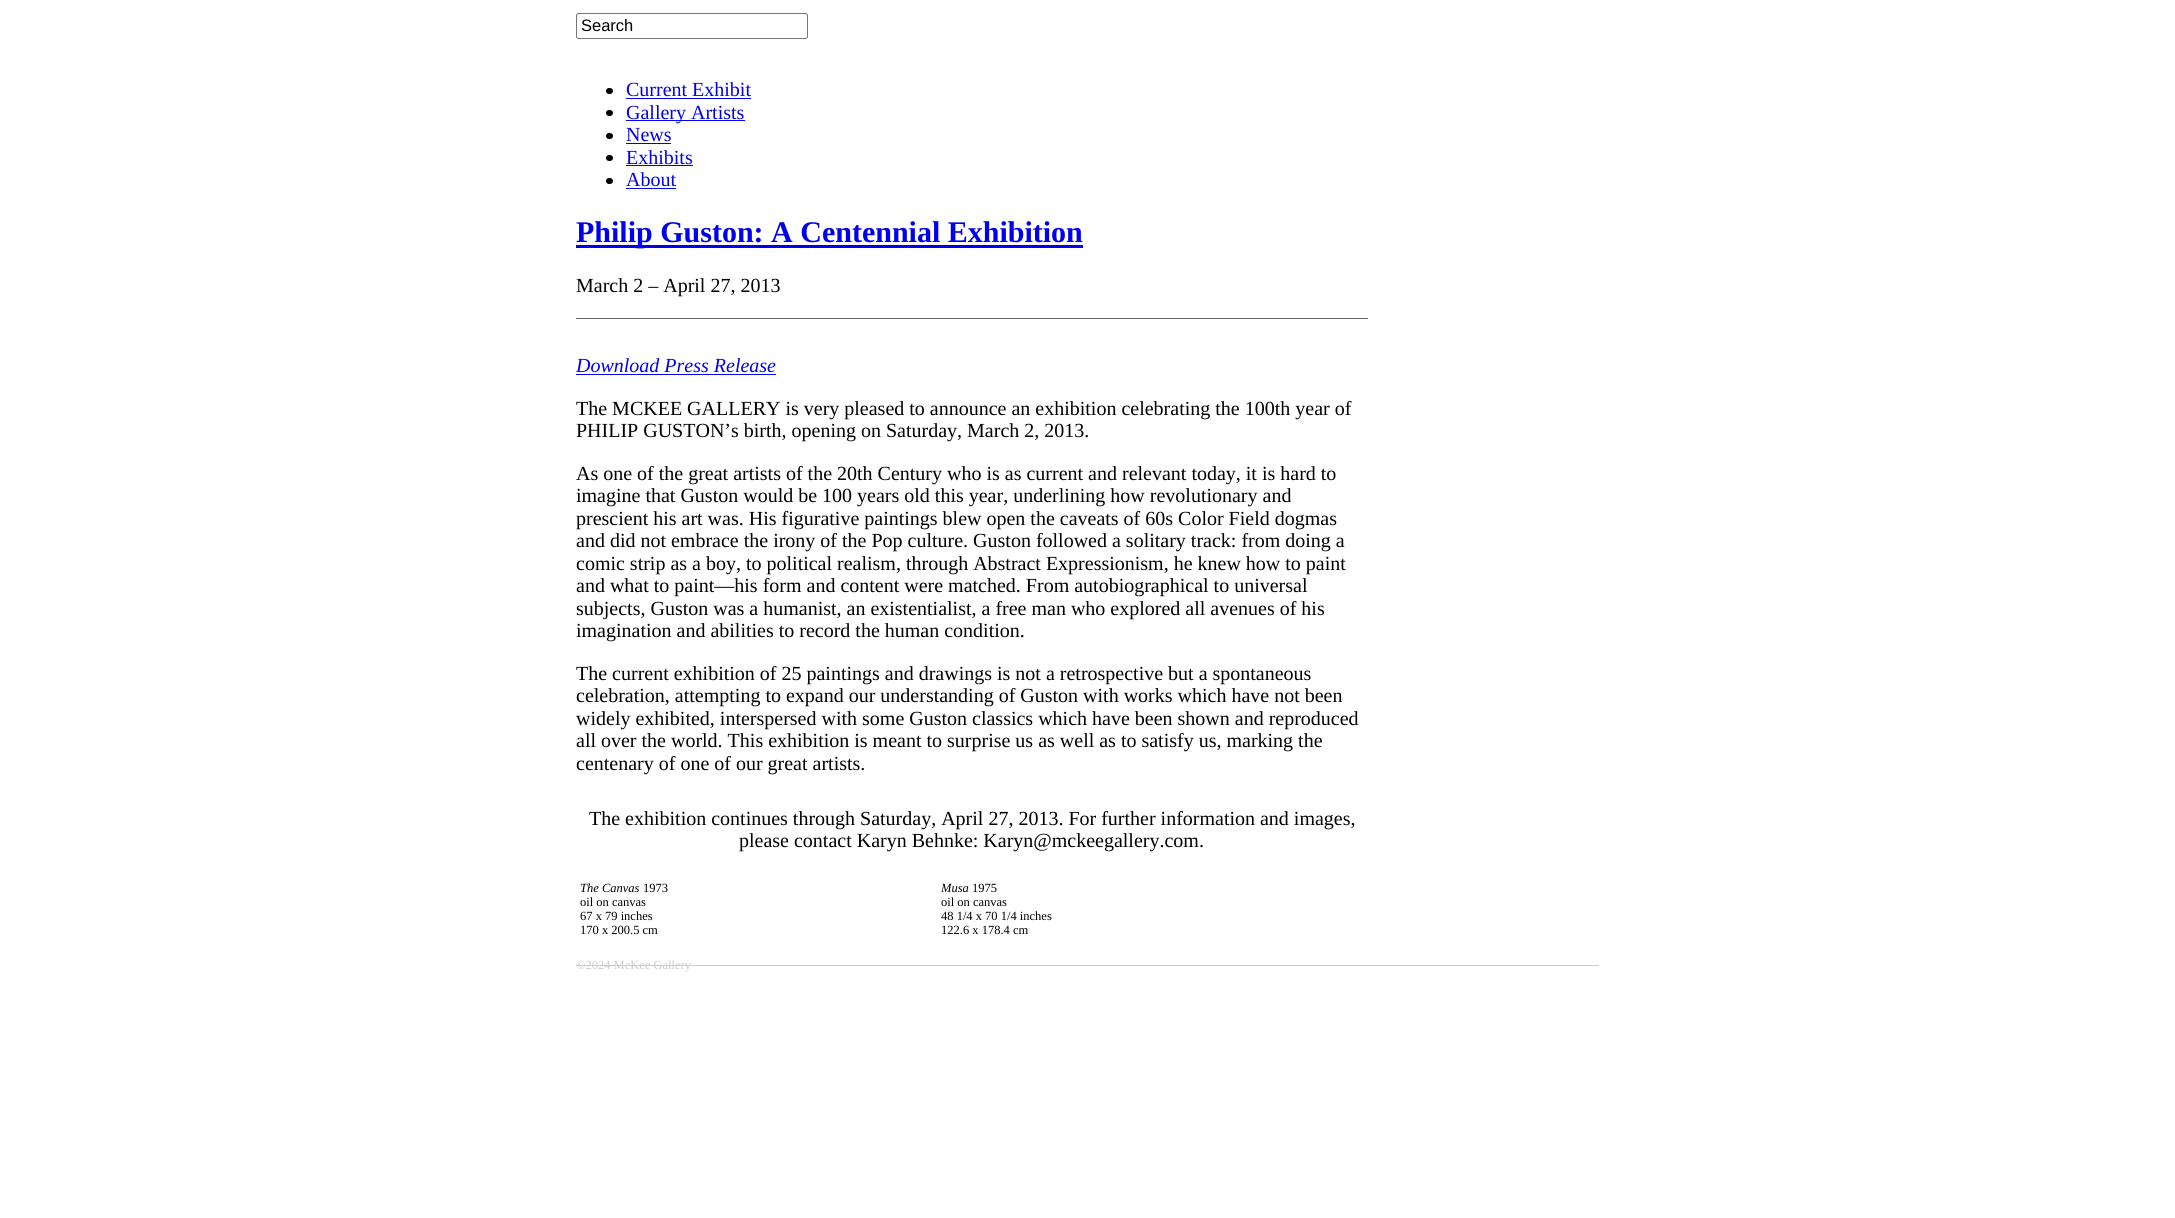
#include <cairo.h>
#include <math.h>
#include <stddef.h>

static cairo_t *ctx;

static void use_color(int r, int g, int b) {
    cairo_set_source_rgb(ctx, r / 255.0, g / 255.0, b / 255.0);
}

static void round_rect(double x, double y, double w, double h, double r) {
    cairo_new_sub_path(ctx);
    cairo_arc(ctx, x + w - r, y + h - r, r, 0, M_PI / 2);
    cairo_arc(ctx, x + r, y + h - r, r, M_PI / 2, M_PI);
    cairo_arc(ctx, x + r, y + r, r, M_PI, 1.5 * M_PI);
    cairo_arc(ctx, x + w - r, y + r, r, 1.5 * M_PI, 2 * M_PI);
    cairo_close_path(ctx);
}

int main(void) {
    cairo_surface_t *surface = cairo_image_surface_create(CAIRO_FORMAT_RGB24, 2175, 1218);
    ctx = cairo_create(surface);
    cairo_font_options_t *options = cairo_font_options_create();
    cairo_font_options_set_hint_metrics(options, CAIRO_HINT_METRICS_OFF);
    cairo_font_options_set_hint_style(options, CAIRO_HINT_STYLE_NONE);
    cairo_set_font_options(ctx, options);
    cairo_set_miter_limit(ctx, 4);
    use_color(255, 255, 255);
    cairo_paint(ctx);
    round_rect(576.5, 13.5, 231, 25, 2);
    use_color(118, 118, 118);
    cairo_set_line_width(ctx, 1);
    cairo_stroke(ctx);
    cairo_select_font_face(ctx, "Liberation Sans", CAIRO_FONT_SLANT_NORMAL, CAIRO_FONT_WEIGHT_NORMAL);
    cairo_set_font_size(ctx, 16.5);
    use_color(0, 0, 0);
    cairo_move_to(ctx, 581, 31);
    cairo_show_text(ctx, "Search");
    round_rect(606, 88, 7, 6, 3);
    cairo_fill(ctx);
    cairo_select_font_face(ctx, "Liberation Serif", CAIRO_FONT_SLANT_NORMAL, CAIRO_FONT_WEIGHT_NORMAL);
    cairo_set_font_size(ctx, 20);
    use_color(0, 0, 238);
    cairo_move_to(ctx, 626, 96);
    cairo_show_text(ctx, "Current Exhibit");
    cairo_rectangle(ctx, 626, 98, 125, 1);
    cairo_fill(ctx);
    use_color(0, 0, 0);
    round_rect(606, 110, 7, 6, 3);
    cairo_fill(ctx);
    use_color(0, 0, 238);
    cairo_rectangle(ctx, 626, 120, 119, 1);
    cairo_fill(ctx);
    cairo_move_to(ctx, 626, 119);
    cairo_show_text(ctx, "Gallery Artists");
    use_color(0, 0, 0);
    round_rect(606, 133, 7, 6, 3);
    cairo_fill(ctx);
    use_color(0, 0, 238);
    cairo_move_to(ctx, 626, 141);
    cairo_show_text(ctx, "News");
    cairo_rectangle(ctx, 626, 143, 45, 1);
    cairo_fill(ctx);
    use_color(0, 0, 0);
    round_rect(606, 155, 7, 6, 3);
    cairo_fill(ctx);
    use_color(0, 0, 238);
    cairo_move_to(ctx, 626, 164);
    cairo_show_text(ctx, "Exhibits");
    cairo_rectangle(ctx, 626, 165, 67, 1);
    cairo_fill(ctx);
    use_color(0, 0, 0);
    round_rect(606, 178, 7, 6, 3);
    cairo_fill(ctx);
    use_color(0, 0, 238);
    cairo_move_to(ctx, 626, 186);
    cairo_show_text(ctx, "About");
    cairo_rectangle(ctx, 626, 188, 50, 1);
    cairo_fill(ctx);
    cairo_rectangle(ctx, 576, 245, 507, 3);
    cairo_fill(ctx);
    cairo_select_font_face(ctx, "Liberation Serif", CAIRO_FONT_SLANT_NORMAL, CAIRO_FONT_WEIGHT_BOLD);
    cairo_set_font_size(ctx, 30);
    cairo_move_to(ctx, 576, 242);
    cairo_show_text(ctx, "Philip Guston: A Centennial Exhibition");
    cairo_select_font_face(ctx, "Liberation Serif", CAIRO_FONT_SLANT_NORMAL, CAIRO_FONT_WEIGHT_NORMAL);
    cairo_set_font_size(ctx, 20);
    use_color(0, 0, 0);
    cairo_move_to(ctx, 576, 292);
    cairo_show_text(ctx, "March 2 – April 27, 2013");
    use_color(102, 102, 102);
    cairo_rectangle(ctx, 576, 318, 792, 1);
    cairo_fill(ctx);
    cairo_select_font_face(ctx, "Liberation Serif", CAIRO_FONT_SLANT_ITALIC, CAIRO_FONT_WEIGHT_NORMAL);
    use_color(0, 0, 238);
    cairo_move_to(ctx, 576, 372);
    cairo_show_text(ctx, "Download Press Release");
    cairo_rectangle(ctx, 576, 374, 200, 1);
    cairo_fill(ctx);
    cairo_select_font_face(ctx, "Liberation Serif", CAIRO_FONT_SLANT_NORMAL, CAIRO_FONT_WEIGHT_NORMAL);
    use_color(0, 0, 0);
    cairo_move_to(ctx, 576, 415);
    cairo_show_text(ctx, "The MCKEE GALLERY is very pleased to announce an exhibition celebrating the 100th year of");
    cairo_move_to(ctx, 576, 437);
    cairo_show_text(ctx, "PHILIP GUSTON’s birth, opening on Saturday, March 2, 2013.");
    cairo_move_to(ctx, 576, 480);
    cairo_show_text(ctx, "As one of the great artists of the 20th Century who is as current and relevant today, it is hard to");
    cairo_move_to(ctx, 576, 502);
    cairo_show_text(ctx, "imagine that Guston would be 100 years old this year, underlining how revolutionary and");
    cairo_move_to(ctx, 576, 525);
    cairo_show_text(ctx, "prescient his art was. His figurative paintings blew open the caveats of 60s Color Field dogmas");
    cairo_move_to(ctx, 576, 547);
    cairo_show_text(ctx, "and did not embrace the irony of the Pop culture. Guston followed a solitary track: from doing a");
    cairo_move_to(ctx, 576, 570);
    cairo_show_text(ctx, "comic strip as a boy, to political realism, through Abstract Expressionism, he knew how to paint");
    cairo_move_to(ctx, 576, 592);
    cairo_show_text(ctx, "and what to paint—his form and content were matched. From autobiographical to universal");
    cairo_move_to(ctx, 576, 615);
    cairo_show_text(ctx, "subjects, Guston was a humanist, an existentialist, a free man who explored all avenues of his");
    cairo_move_to(ctx, 576, 637);
    cairo_show_text(ctx, "imagination and abilities to record the human condition.");
    cairo_move_to(ctx, 576, 680);
    cairo_show_text(ctx, "The current exhibition of 25 paintings and drawings is not a retrospective but a spontaneous");
    cairo_move_to(ctx, 576, 702);
    cairo_show_text(ctx, "celebration, attempting to expand our understanding of Guston with works which have not been");
    cairo_move_to(ctx, 576, 725);
    cairo_show_text(ctx, "widely exhibited, interspersed with some Guston classics which have been shown and reproduced");
    cairo_move_to(ctx, 576, 747);
    cairo_show_text(ctx, "all over the world. This exhibition is meant to surprise us as well as to satisfy us, marking the");
    cairo_move_to(ctx, 576, 770);
    cairo_show_text(ctx, "centenary of one of our great artists.");
    cairo_move_to(ctx, 589, 825);
    cairo_show_text(ctx, "The exhibition continues through Saturday, April 27, 2013. For further information and images,");
    cairo_move_to(ctx, 739, 847);
    cairo_show_text(ctx, "please contact Karyn Behnke: Karyn@mckeegallery.com.");
    cairo_select_font_face(ctx, "Liberation Serif", CAIRO_FONT_SLANT_ITALIC, CAIRO_FONT_WEIGHT_NORMAL);
    cairo_set_font_size(ctx, 12.5);
    cairo_move_to(ctx, 580, 892);
    cairo_show_text(ctx, "The Canvas");
    cairo_select_font_face(ctx, "Liberation Serif", CAIRO_FONT_SLANT_NORMAL, CAIRO_FONT_WEIGHT_NORMAL);
    cairo_move_to(ctx, 643, 892);
    cairo_show_text(ctx, "1973");
    cairo_move_to(ctx, 580, 906);
    cairo_show_text(ctx, "oil on canvas");
    cairo_move_to(ctx, 580, 920);
    cairo_show_text(ctx, "67 x 79 inches");
    cairo_move_to(ctx, 580, 934);
    cairo_show_text(ctx, "170 x 200.5 cm");
    cairo_select_font_face(ctx, "Liberation Serif", CAIRO_FONT_SLANT_ITALIC, CAIRO_FONT_WEIGHT_NORMAL);
    cairo_move_to(ctx, 941, 892);
    cairo_show_text(ctx, "Musa");
    cairo_select_font_face(ctx, "Liberation Serif", CAIRO_FONT_SLANT_NORMAL, CAIRO_FONT_WEIGHT_NORMAL);
    cairo_move_to(ctx, 972, 892);
    cairo_show_text(ctx, "1975");
    cairo_move_to(ctx, 941, 906);
    cairo_show_text(ctx, "oil on canvas");
    cairo_move_to(ctx, 941, 920);
    cairo_show_text(ctx, "48 1/4 x 70 1/4 inches");
    cairo_move_to(ctx, 941, 934);
    cairo_show_text(ctx, "122.6 x 178.4 cm");
    use_color(204, 204, 204);
    cairo_move_to(ctx, 576, 969);
    cairo_show_text(ctx, "©2024 McKee Gallery");
    cairo_rectangle(ctx, 576, 965, 1023, 1);
    cairo_fill(ctx);
    cairo_surface_write_to_png(surface, "result.png");
    cairo_font_options_destroy(options);
    cairo_destroy(ctx);
    cairo_surface_destroy(surface);
    return 0;
}
